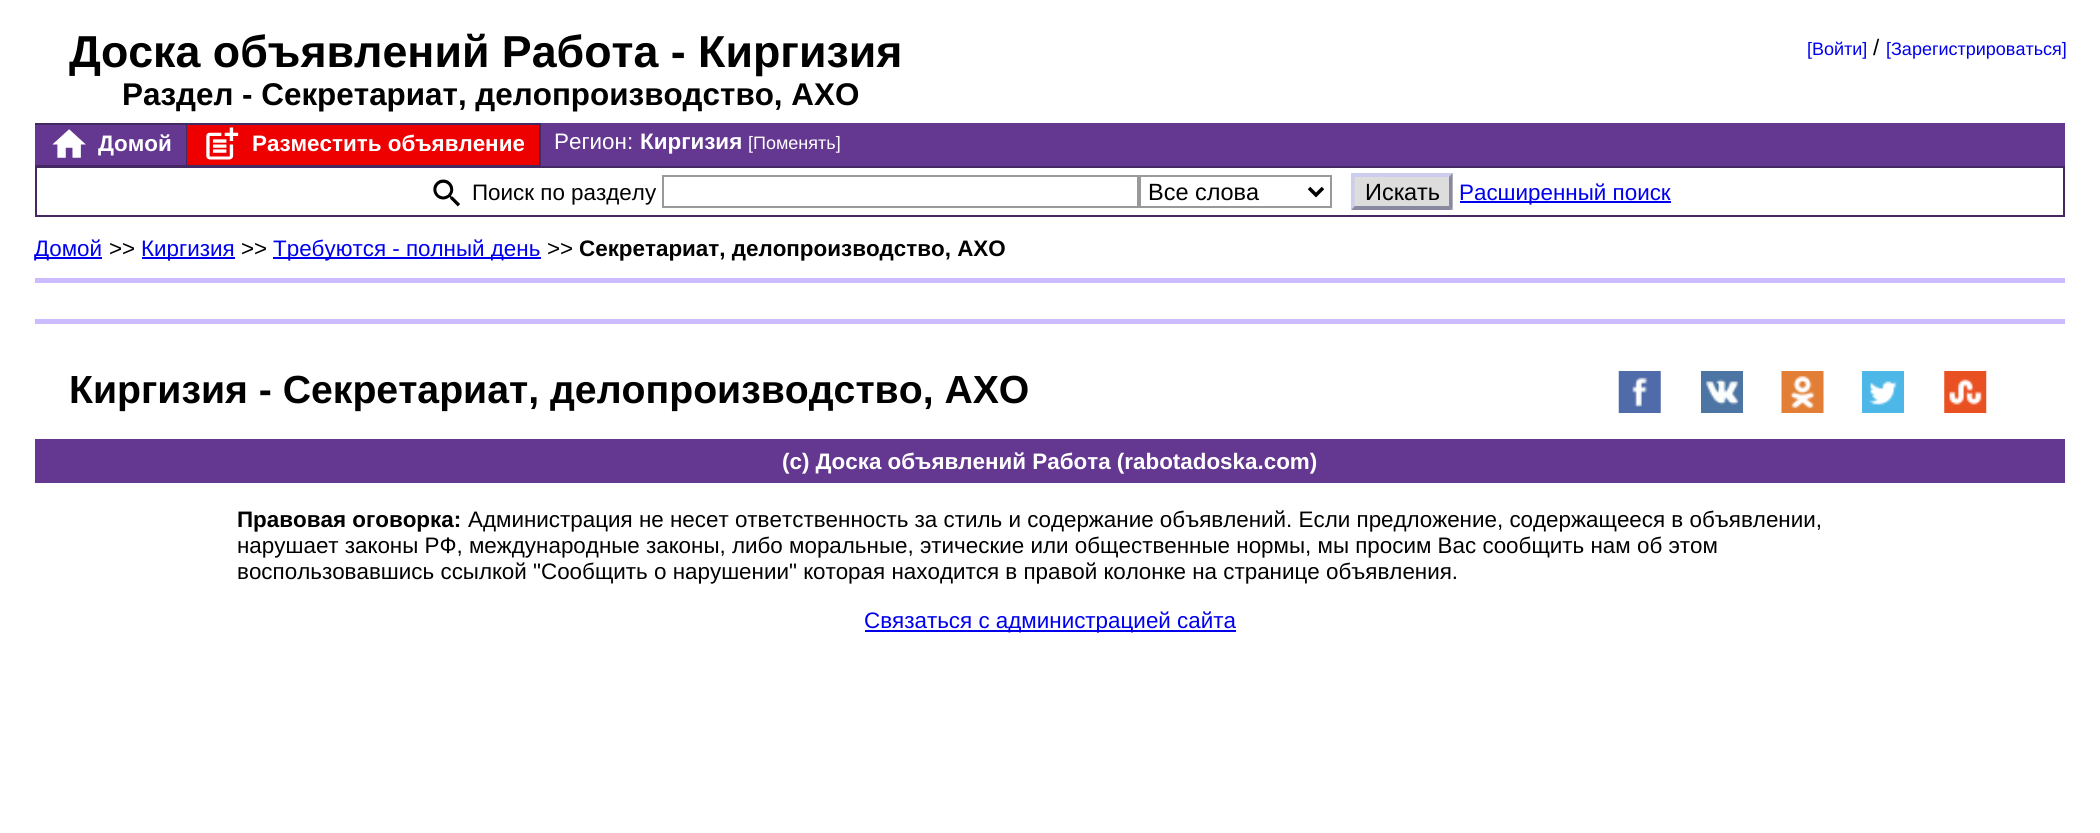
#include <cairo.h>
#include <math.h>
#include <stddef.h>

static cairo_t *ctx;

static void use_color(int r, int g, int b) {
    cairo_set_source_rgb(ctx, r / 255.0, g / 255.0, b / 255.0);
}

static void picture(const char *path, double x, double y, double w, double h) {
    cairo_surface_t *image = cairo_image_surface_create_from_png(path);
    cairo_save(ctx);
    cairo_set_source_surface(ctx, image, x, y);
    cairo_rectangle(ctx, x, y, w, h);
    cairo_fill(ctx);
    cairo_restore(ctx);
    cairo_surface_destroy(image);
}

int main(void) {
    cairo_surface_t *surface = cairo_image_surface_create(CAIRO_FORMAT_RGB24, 2100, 833);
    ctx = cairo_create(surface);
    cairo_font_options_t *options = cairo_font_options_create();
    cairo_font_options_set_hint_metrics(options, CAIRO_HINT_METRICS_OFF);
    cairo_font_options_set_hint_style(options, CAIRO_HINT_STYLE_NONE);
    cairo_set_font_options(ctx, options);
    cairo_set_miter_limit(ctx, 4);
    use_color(255, 255, 255);
    cairo_paint(ctx);
    cairo_select_font_face(ctx, "Liberation Sans", CAIRO_FONT_SLANT_NORMAL, CAIRO_FONT_WEIGHT_BOLD);
    cairo_set_font_size(ctx, 44.75);
    use_color(0, 0, 0);
    cairo_move_to(ctx, 69, 67);
    cairo_show_text(ctx, "Доска объявлений Работа - Киргизия");
    cairo_set_font_size(ctx, 31.4);
    cairo_move_to(ctx, 122, 105);
    cairo_show_text(ctx, "Раздел - Секретариат, делопроизводство, АХО");
    cairo_select_font_face(ctx, "Liberation Sans", CAIRO_FONT_SLANT_NORMAL, CAIRO_FONT_WEIGHT_NORMAL);
    cairo_set_font_size(ctx, 18);
    use_color(0, 0, 238);
    cairo_move_to(ctx, 1807, 55);
    cairo_show_text(ctx, "[Войти]");
    cairo_set_font_size(ctx, 22.4);
    use_color(0, 0, 0);
    cairo_move_to(ctx, 1873, 55);
    cairo_show_text(ctx, "/");
    cairo_set_font_size(ctx, 18);
    use_color(0, 0, 238);
    cairo_move_to(ctx, 1886, 55);
    cairo_show_text(ctx, "[Зарегистрироваться]");
    use_color(100, 56, 145);
    cairo_rectangle(ctx, 35, 123, 2030, 43);
    cairo_fill(ctx);
    use_color(68, 40, 97);
    cairo_rectangle(ctx, 35, 123, 506, 2);
    cairo_fill(ctx);
    cairo_rectangle(ctx, 186, 123, 1, 43);
    cairo_fill(ctx);
    cairo_rectangle(ctx, 35, 165, 152, 1);
    cairo_fill(ctx);
    picture("img1.png", 52, 129, 34, 29);
    cairo_select_font_face(ctx, "Liberation Sans", CAIRO_FONT_SLANT_NORMAL, CAIRO_FONT_WEIGHT_BOLD);
    cairo_set_font_size(ctx, 22.4);
    use_color(255, 255, 255);
    cairo_move_to(ctx, 98, 151);
    cairo_show_text(ctx, "Домой");
    use_color(238, 0, 0);
    cairo_rectangle(ctx, 187, 125, 352, 40);
    cairo_fill(ctx);
    use_color(68, 40, 97);
    cairo_rectangle(ctx, 539, 123, 2, 43);
    cairo_fill(ctx);
    cairo_rectangle(ctx, 187, 165, 354, 1);
    cairo_fill(ctx);
    picture("img2.png", 206, 127, 33, 33);
    use_color(255, 255, 255);
    cairo_move_to(ctx, 252, 151);
    cairo_show_text(ctx, "Разместить объявление");
    cairo_select_font_face(ctx, "Liberation Sans", CAIRO_FONT_SLANT_NORMAL, CAIRO_FONT_WEIGHT_NORMAL);
    cairo_move_to(ctx, 554, 149);
    cairo_show_text(ctx, "Регион:");
    cairo_select_font_face(ctx, "Liberation Sans", CAIRO_FONT_SLANT_NORMAL, CAIRO_FONT_WEIGHT_BOLD);
    cairo_move_to(ctx, 640, 149);
    cairo_show_text(ctx, "Киргизия");
    cairo_select_font_face(ctx, "Liberation Sans", CAIRO_FONT_SLANT_NORMAL, CAIRO_FONT_WEIGHT_NORMAL);
    cairo_set_font_size(ctx, 18);
    cairo_move_to(ctx, 748, 149);
    cairo_show_text(ctx, "[Поменять]");
    cairo_rectangle(ctx, 36, 167, 2028, 49);
    use_color(68, 40, 97);
    cairo_stroke(ctx);
    picture("img3.png", 433, 179, 27, 28);
    cairo_set_font_size(ctx, 22.4);
    use_color(0, 0, 0);
    cairo_move_to(ctx, 472, 200);
    cairo_show_text(ctx, "Поиск по разделу");
    cairo_rectangle(ctx, 663, 176, 475, 31);
    use_color(153, 153, 153);
    cairo_stroke(ctx);
    cairo_rectangle(ctx, 1140, 176, 191, 31);
    cairo_stroke(ctx);
    cairo_new_path(ctx);
    cairo_move_to(ctx, 1309, 188);
    cairo_line_to(ctx, 1316, 195);
    cairo_line_to(ctx, 1323, 188);
    use_color(0, 0, 0);
    cairo_set_line_width(ctx, 3.5);
    cairo_stroke(ctx);
    cairo_set_font_size(ctx, 23.5);
    cairo_move_to(ctx, 1148, 200);
    cairo_show_text(ctx, "Все слова");
    use_color(221, 221, 221);
    cairo_rectangle(ctx, 1351, 173, 102, 37);
    cairo_fill(ctx);
    use_color(204, 204, 238);
    cairo_new_path(ctx);
    cairo_move_to(ctx, 1351, 173);
    cairo_line_to(ctx, 1452, 173);
    cairo_line_to(ctx, 1449, 177);
    cairo_line_to(ctx, 1354, 177);
    cairo_close_path(ctx);
    cairo_fill(ctx);
    use_color(136, 136, 159);
    cairo_new_path(ctx);
    cairo_move_to(ctx, 1452.5, 173);
    cairo_line_to(ctx, 1452.5, 210);
    cairo_line_to(ctx, 1449, 206.5);
    cairo_line_to(ctx, 1449, 177);
    cairo_close_path(ctx);
    cairo_fill(ctx);
    cairo_new_path(ctx);
    cairo_move_to(ctx, 1452, 210);
    cairo_line_to(ctx, 1351, 210);
    cairo_line_to(ctx, 1354, 206);
    cairo_line_to(ctx, 1449, 206);
    cairo_close_path(ctx);
    cairo_fill(ctx);
    use_color(204, 204, 238);
    cairo_new_path(ctx);
    cairo_move_to(ctx, 1351, 210);
    cairo_line_to(ctx, 1351, 173);
    cairo_line_to(ctx, 1354.5, 177);
    cairo_line_to(ctx, 1354.5, 206.5);
    cairo_close_path(ctx);
    cairo_fill(ctx);
    use_color(0, 0, 0);
    cairo_move_to(ctx, 1365, 200);
    cairo_show_text(ctx, "Искать");
    use_color(0, 0, 238);
    cairo_rectangle(ctx, 1460, 201, 211, 2);
    cairo_fill(ctx);
    cairo_set_font_size(ctx, 22.4);
    cairo_move_to(ctx, 1459, 200);
    cairo_show_text(ctx, "Расширенный поиск");
    cairo_rectangle(ctx, 35, 257, 67, 2);
    cairo_fill(ctx);
    cairo_move_to(ctx, 34, 256);
    cairo_show_text(ctx, "Домой");
    use_color(0, 0, 0);
    cairo_move_to(ctx, 109, 256);
    cairo_show_text(ctx, ">>");
    use_color(0, 0, 238);
    cairo_rectangle(ctx, 142, 257, 93, 2);
    cairo_fill(ctx);
    cairo_move_to(ctx, 141, 256);
    cairo_show_text(ctx, "Киргизия");
    use_color(0, 0, 0);
    cairo_move_to(ctx, 241, 256);
    cairo_show_text(ctx, ">>");
    use_color(0, 0, 238);
    cairo_rectangle(ctx, 273, 257, 268, 2);
    cairo_fill(ctx);
    cairo_move_to(ctx, 273, 256);
    cairo_show_text(ctx, "Требуются - полный день");
    use_color(0, 0, 0);
    cairo_move_to(ctx, 547, 256);
    cairo_show_text(ctx, ">>");
    cairo_select_font_face(ctx, "Liberation Sans", CAIRO_FONT_SLANT_NORMAL, CAIRO_FONT_WEIGHT_BOLD);
    cairo_move_to(ctx, 579, 256);
    cairo_show_text(ctx, "Секретариат, делопроизводство, АХО");
    use_color(204, 187, 255);
    cairo_rectangle(ctx, 35, 278, 2030, 5);
    cairo_fill(ctx);
    cairo_rectangle(ctx, 35, 319, 2030, 5);
    cairo_fill(ctx);
    cairo_set_font_size(ctx, 39.2);
    use_color(0, 0, 0);
    cairo_move_to(ctx, 69, 403);
    cairo_show_text(ctx, "Киргизия - Секретариат, делопроизводство, АХО");
    picture("img4.png", 1618, 371, 43, 42);
    picture("img5.png", 1701, 371, 42, 42);
    picture("img6.png", 1781, 371, 43, 42);
    picture("img7.png", 1862, 371, 42, 42);
    picture("img8.png", 1944, 371, 43, 42);
    use_color(100, 56, 145);
    cairo_rectangle(ctx, 35, 439, 2030, 44);
    cairo_fill(ctx);
    cairo_set_font_size(ctx, 22.4);
    use_color(255, 255, 255);
    cairo_move_to(ctx, 782, 469);
    cairo_show_text(ctx, "(c) Доска объявлений Работа (rabotadoska.com)");
    use_color(0, 0, 0);
    cairo_move_to(ctx, 237, 527);
    cairo_show_text(ctx, "Правовая оговорка:");
    cairo_select_font_face(ctx, "Liberation Sans", CAIRO_FONT_SLANT_NORMAL, CAIRO_FONT_WEIGHT_NORMAL);
    cairo_move_to(ctx, 468, 527);
    cairo_show_text(ctx, "Администрация не несет ответственность за стиль и содержание объявлений. Если предложение, содержащееся в объявлении,");
    cairo_move_to(ctx, 237, 553);
    cairo_show_text(ctx, "нарушает законы РФ, международные законы, либо моральные, этические или общественные нормы, мы просим Вас сообщить нам об этом");
    cairo_move_to(ctx, 237, 579);
    cairo_show_text(ctx, "воспользовавшись ссылкой \"Сообщить о нарушении\" которая находится в правой колонке на странице объявления.");
    use_color(0, 0, 238);
    cairo_rectangle(ctx, 865, 630, 371, 2);
    cairo_fill(ctx);
    cairo_move_to(ctx, 864, 628);
    cairo_show_text(ctx, "Связаться с администрацией сайта");
    cairo_surface_write_to_png(surface, "result.png");
    cairo_font_options_destroy(options);
    cairo_destroy(ctx);
    cairo_surface_destroy(surface);
    return 0;
}
